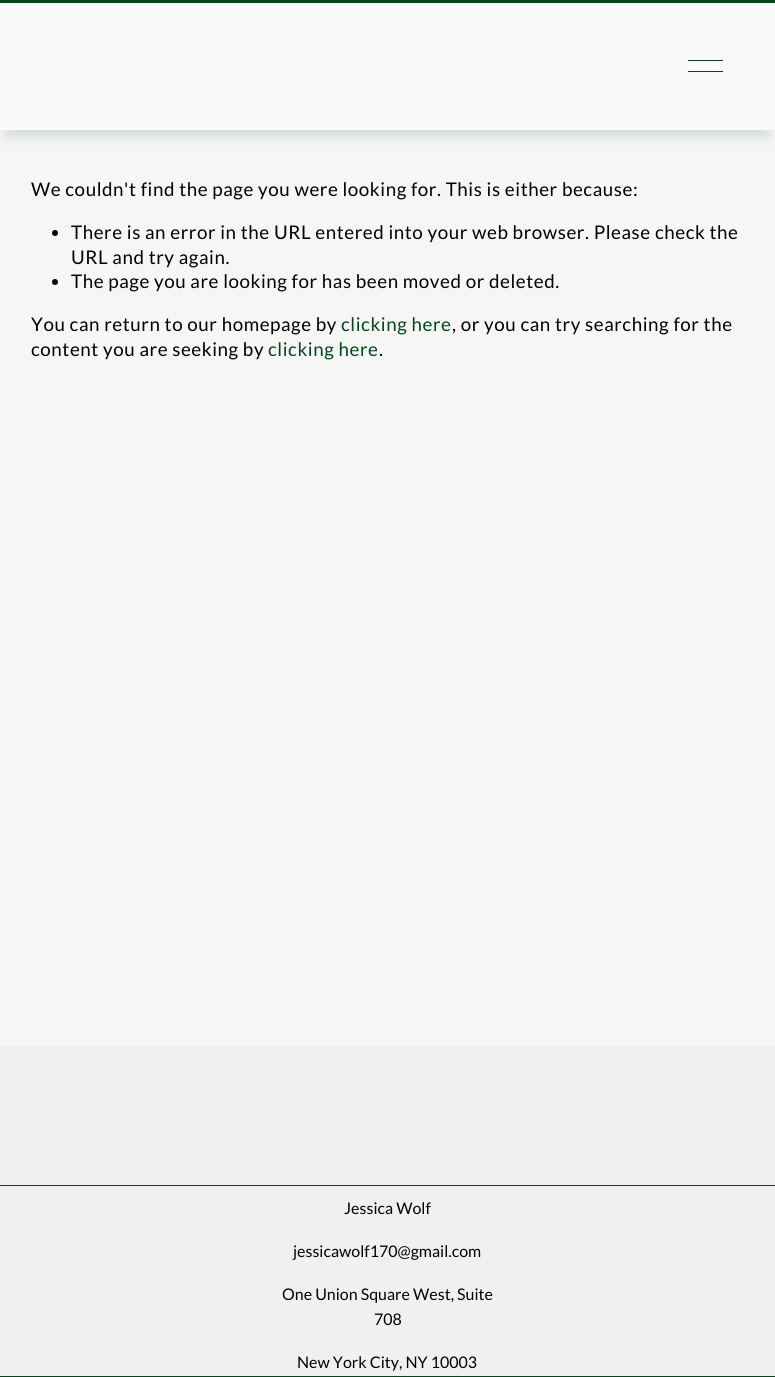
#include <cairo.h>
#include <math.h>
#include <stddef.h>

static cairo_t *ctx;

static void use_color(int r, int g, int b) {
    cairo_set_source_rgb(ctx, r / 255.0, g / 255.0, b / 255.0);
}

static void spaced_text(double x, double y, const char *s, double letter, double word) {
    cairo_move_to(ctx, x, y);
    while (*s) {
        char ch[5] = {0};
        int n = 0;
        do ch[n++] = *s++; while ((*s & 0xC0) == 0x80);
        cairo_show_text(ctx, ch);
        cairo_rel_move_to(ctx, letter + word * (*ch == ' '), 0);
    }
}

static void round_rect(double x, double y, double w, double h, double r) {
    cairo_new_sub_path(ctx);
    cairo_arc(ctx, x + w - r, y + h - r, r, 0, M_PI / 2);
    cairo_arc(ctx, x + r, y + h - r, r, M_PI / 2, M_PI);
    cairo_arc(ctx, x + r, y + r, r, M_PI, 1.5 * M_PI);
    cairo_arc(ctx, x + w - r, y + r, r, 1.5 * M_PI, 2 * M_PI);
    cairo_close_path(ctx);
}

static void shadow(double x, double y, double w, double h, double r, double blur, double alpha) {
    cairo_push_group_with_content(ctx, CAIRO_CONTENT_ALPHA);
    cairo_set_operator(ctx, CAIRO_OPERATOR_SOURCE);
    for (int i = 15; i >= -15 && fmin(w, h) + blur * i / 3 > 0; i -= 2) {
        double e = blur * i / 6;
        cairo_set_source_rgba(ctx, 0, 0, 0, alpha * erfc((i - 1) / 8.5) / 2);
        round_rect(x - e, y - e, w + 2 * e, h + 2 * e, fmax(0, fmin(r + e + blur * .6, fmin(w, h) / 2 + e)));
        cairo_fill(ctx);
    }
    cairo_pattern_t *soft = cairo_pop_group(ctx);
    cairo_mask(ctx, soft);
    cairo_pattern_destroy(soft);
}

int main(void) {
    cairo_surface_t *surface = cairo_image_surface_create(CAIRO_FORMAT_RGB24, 775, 1377);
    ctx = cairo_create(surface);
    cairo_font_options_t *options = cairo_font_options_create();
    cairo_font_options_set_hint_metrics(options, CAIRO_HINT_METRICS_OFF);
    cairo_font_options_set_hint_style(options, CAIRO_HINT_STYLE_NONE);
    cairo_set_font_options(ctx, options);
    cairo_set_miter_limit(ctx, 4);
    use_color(246, 246, 246);
    cairo_paint(ctx);
    use_color(209, 220, 213);
    shadow(6, 19, 763, 118, 0, 6, 1);
    use_color(0, 72, 24);
    cairo_rectangle(ctx, 0, 0, 775, 3);
    cairo_fill(ctx);
    use_color(250, 250, 250);
    cairo_rectangle(ctx, 0, 3, 775, 127);
    cairo_fill(ctx);
    use_color(0, 72, 24);
    cairo_rectangle(ctx, 688, 60, 35, 1);
    cairo_fill(ctx);
    cairo_rectangle(ctx, 688, 71, 35, 1);
    cairo_fill(ctx);
    cairo_select_font_face(ctx, "Lato", CAIRO_FONT_SLANT_NORMAL, CAIRO_FONT_WEIGHT_NORMAL);
    cairo_set_font_size(ctx, 18.8);
    use_color(0, 0, 0);
    spaced_text(31, 196, "We couldn't find the page you were looking for. This is either because:", 0.55, 0);
    cairo_new_path(ctx);
    cairo_arc(ctx, 55, 233, 3, 0, 2 * M_PI);
    cairo_fill(ctx);
    spaced_text(71, 239, "There is an error in the URL entered into your web browser. Please check the", 0.55, 0);
    spaced_text(71, 264, "URL and try again.", 0.55, 0);
    cairo_new_path(ctx);
    cairo_arc(ctx, 55, 282, 3, 0, 2 * M_PI);
    cairo_fill(ctx);
    spaced_text(71, 288, "The page you are looking for has been moved or deleted.", 0.55, 0);
    spaced_text(31, 331, "You can return to our homepage by", 0.55, 0);
    use_color(0, 72, 24);
    spaced_text(341, 331, "clicking here", 0.55, 0);
    use_color(0, 0, 0);
    spaced_text(452, 331, ", or you can try searching for the", 0.55, 0);
    spaced_text(31, 356, "content you are seeking by", 0.55, 0);
    use_color(0, 72, 24);
    spaced_text(268, 356, "clicking here", 0.55, 0);
    use_color(0, 0, 0);
    spaced_text(379, 356, ".", 0.55, 0);
    use_color(240, 240, 240);
    cairo_rectangle(ctx, 0, 1046, 775, 330);
    cairo_fill(ctx);
    use_color(0, 72, 24);
    cairo_rectangle(ctx, 0, 1185, 775, 1);
    cairo_fill(ctx);
    cairo_set_font_size(ctx, 16);
    use_color(0, 0, 0);
    cairo_move_to(ctx, 344, 1214);
    cairo_show_text(ctx, "Jessica Wolf");
    cairo_move_to(ctx, 293, 1257);
    cairo_show_text(ctx, "jessicawolf170@gmail.com");
    cairo_move_to(ctx, 282, 1300);
    cairo_show_text(ctx, "One Union Square West, Suite");
    cairo_move_to(ctx, 374, 1325);
    cairo_show_text(ctx, "708");
    cairo_move_to(ctx, 297, 1368);
    cairo_show_text(ctx, "New York City, NY 10003");
    cairo_new_path(ctx);
    cairo_move_to(ctx, -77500, 1211.5);
    cairo_line_to(ctx, -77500, 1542.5);
    cairo_move_to(ctx, 0, 1377);
    cairo_line_to(ctx, 775, 1377);
    use_color(0, 72, 24);
    cairo_set_line_cap(ctx, CAIRO_LINE_CAP_SQUARE);
    cairo_stroke(ctx);
    cairo_surface_write_to_png(surface, "result.png");
    cairo_font_options_destroy(options);
    cairo_destroy(ctx);
    cairo_surface_destroy(surface);
    return 0;
}
